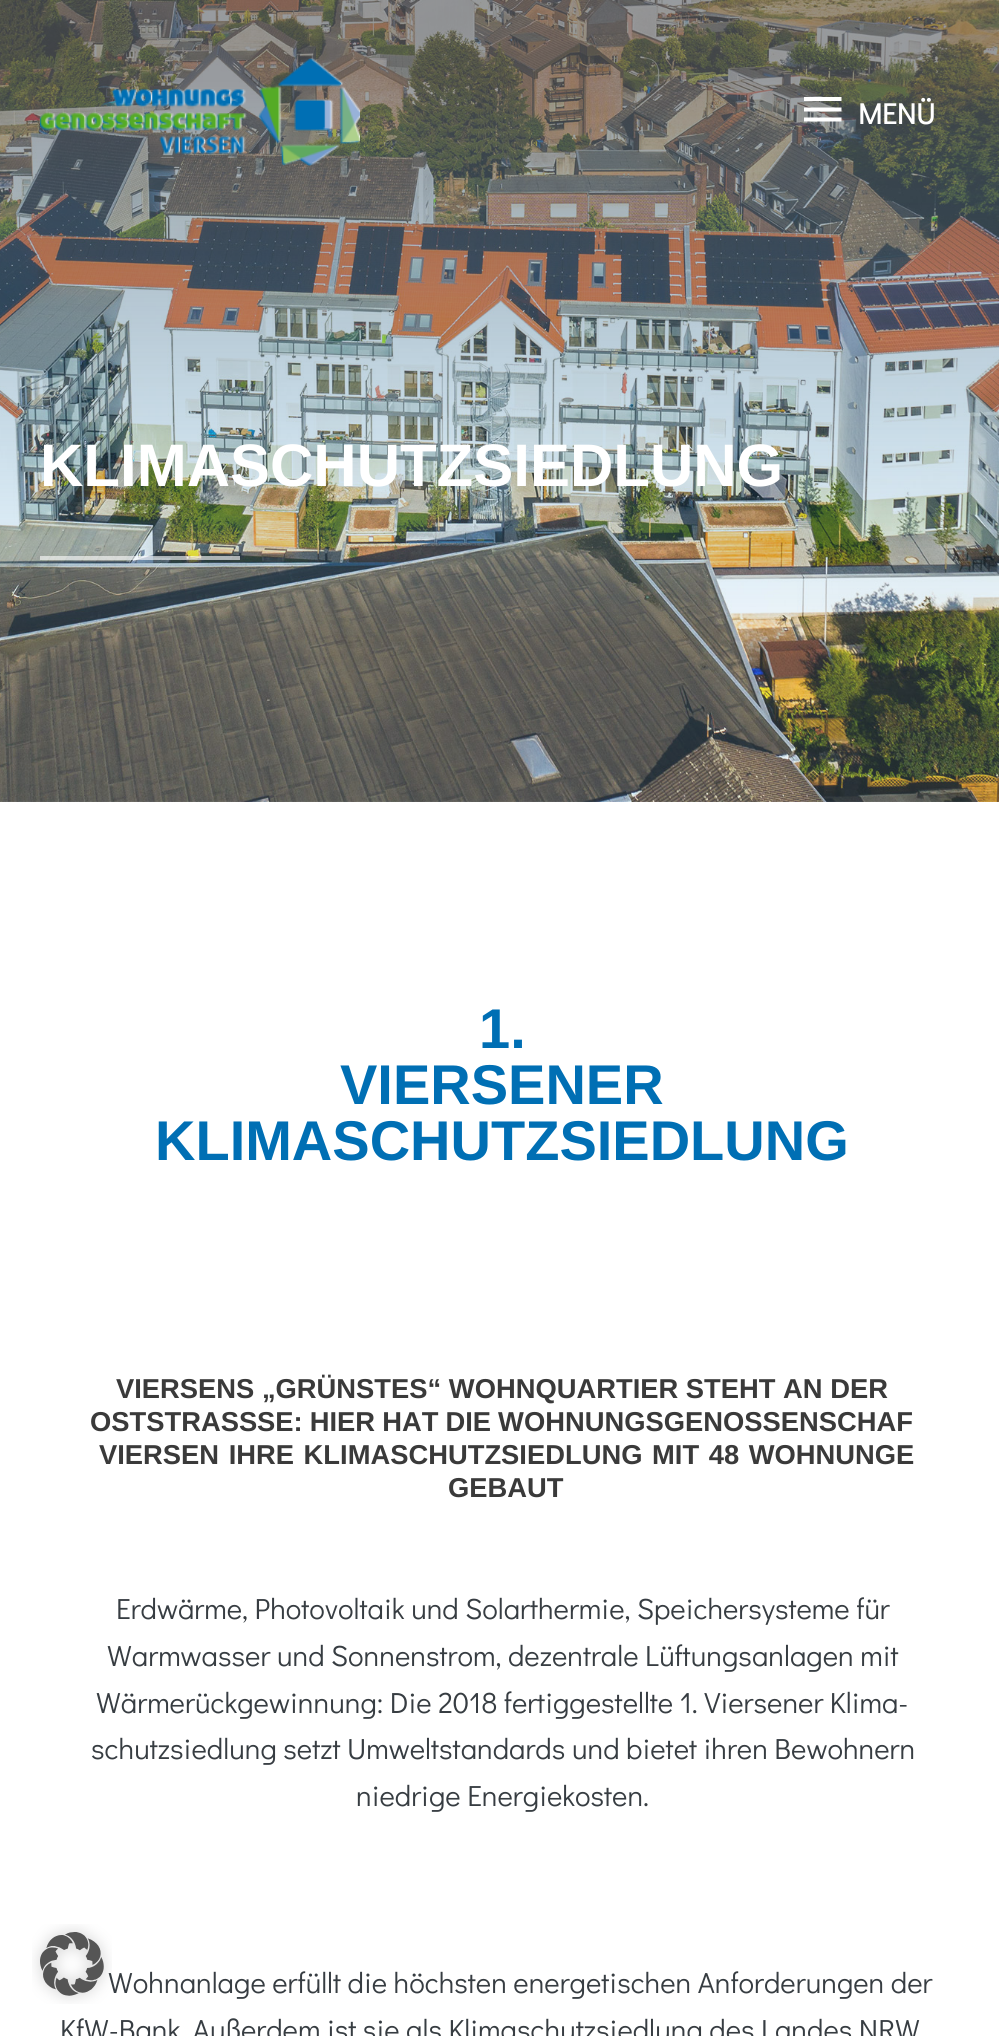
#include <cairo.h>
#include <math.h>
#include <stddef.h>

static cairo_t *ctx;

static void use_color(int r, int g, int b) {
    cairo_set_source_rgb(ctx, r / 255.0, g / 255.0, b / 255.0);
}

static void spaced_text(double x, double y, const char *s, double letter, double word) {
    cairo_move_to(ctx, x, y);
    while (*s) {
        char ch[5] = {0};
        int n = 0;
        do ch[n++] = *s++; while ((*s & 0xC0) == 0x80);
        cairo_show_text(ctx, ch);
        cairo_rel_move_to(ctx, letter + word * (*ch == ' '), 0);
    }
}

static void picture(const char *path, double x, double y, double w, double h) {
    cairo_surface_t *image = cairo_image_surface_create_from_png(path);
    cairo_save(ctx);
    cairo_set_source_surface(ctx, image, x, y);
    cairo_rectangle(ctx, x, y, w, h);
    cairo_fill(ctx);
    cairo_restore(ctx);
    cairo_surface_destroy(image);
}

int main(void) {
    cairo_surface_t *surface = cairo_image_surface_create(CAIRO_FORMAT_RGB24, 999, 2036);
    ctx = cairo_create(surface);
    cairo_font_options_t *options = cairo_font_options_create();
    cairo_font_options_set_hint_metrics(options, CAIRO_HINT_METRICS_OFF);
    cairo_font_options_set_hint_style(options, CAIRO_HINT_STYLE_NONE);
    cairo_set_font_options(ctx, options);
    cairo_set_miter_limit(ctx, 4);
    use_color(255, 255, 255);
    cairo_paint(ctx);
    picture("img2.png", 0, 0, 999, 802);
    picture("img1.png", 40, 58, 320, 108);
    use_color(255, 255, 255);
    cairo_new_path(ctx);
    cairo_move_to(ctx, 804, 97);
    cairo_line_to(ctx, 841.5, 97);
    cairo_line_to(ctx, 841.5, 101);
    cairo_line_to(ctx, 804, 101);
    cairo_close_path(ctx);
    cairo_move_to(ctx, 804, 111.5);
    cairo_line_to(ctx, 804, 107.5);
    cairo_line_to(ctx, 841.5, 107.5);
    cairo_line_to(ctx, 841.5, 111.5);
    cairo_close_path(ctx);
    cairo_move_to(ctx, 804, 121.5);
    cairo_line_to(ctx, 804, 117.5);
    cairo_line_to(ctx, 841.5, 117.5);
    cairo_line_to(ctx, 841.5, 121.5);
    cairo_close_path(ctx);
    cairo_fill(ctx);
    cairo_select_font_face(ctx, "Didact Gothic", CAIRO_FONT_SLANT_NORMAL, CAIRO_FONT_WEIGHT_BOLD);
    cairo_set_font_size(ctx, 29.2);
    cairo_move_to(ctx, 858, 124);
    cairo_show_text(ctx, "MENÜ");
    cairo_select_font_face(ctx, "Liberation Sans", CAIRO_FONT_SLANT_NORMAL, CAIRO_FONT_WEIGHT_BOLD);
    cairo_set_font_size(ctx, 60);
    cairo_move_to(ctx, 40, 486);
    cairo_show_text(ctx, "KLIMASCHUTZSIEDLUNG");
    cairo_set_source_rgba(ctx, 1, 1, 1, 0.6);
    cairo_rectangle(ctx, 40, 556, 200, 4);
    cairo_fill(ctx);
    cairo_set_font_size(ctx, 56);
    use_color(0, 111, 180);
    cairo_move_to(ctx, 479, 1048);
    cairo_show_text(ctx, "1.");
    cairo_move_to(ctx, 340, 1104);
    cairo_show_text(ctx, "VIERSENER");
    cairo_move_to(ctx, 155, 1160);
    cairo_show_text(ctx, "KLIMASCHUTZSIEDLUNG");
    cairo_set_font_size(ctx, 27.35);
    use_color(58, 58, 58);
    cairo_move_to(ctx, 116, 1398);
    cairo_show_text(ctx, "VIERSENS „GRÜNSTES“ WOHNQUARTIER STEHT AN DER");
    cairo_move_to(ctx, 90, 1431);
    cairo_show_text(ctx, "OSTSTRASS");
    spaced_text(257, 1431, "SE: HIER HAT DIE WOHNUNGSGENOSSENSCHAF", 0, -0.5);
    spaced_text(99, 1464, "VIERSEN IHRE KLIMASCHUTZSIEDLUNG MIT 48 WOHNUNGE", 0, 2);
    cairo_move_to(ctx, 448, 1497);
    cairo_show_text(ctx, "GEBAUT");
    cairo_select_font_face(ctx, "Didact Gothic", CAIRO_FONT_SLANT_NORMAL, CAIRO_FONT_WEIGHT_NORMAL);
    cairo_set_font_size(ctx, 29.2);
    use_color(55, 61, 66);
    cairo_move_to(ctx, 116, 1619);
    cairo_show_text(ctx, "Erdwärme, Photovoltaik und Solarthermie, Speichersysteme für");
    cairo_move_to(ctx, 107, 1666);
    cairo_show_text(ctx, "Warmwasser und Sonnenstrom, dezentrale Lüftungsanlagen mit");
    cairo_move_to(ctx, 96, 1713);
    cairo_show_text(ctx, "Wärmerückgewinnung: Die 2018 fertiggestellte 1. Viersener Klima-");
    cairo_move_to(ctx, 91, 1759);
    cairo_show_text(ctx, "schutzsiedlung setzt Umweltstandards und bietet ihren Bewohnern");
    cairo_move_to(ctx, 356, 1806);
    cairo_show_text(ctx, "niedrige Energiekosten.");
    cairo_move_to(ctx, 108, 1993);
    cairo_show_text(ctx, "Wohnanlage erfüllt die höchsten energetischen Anforderungen der");
    cairo_move_to(ctx, 60, 2040);
    cairo_show_text(ctx, "KfW-Bank. Außerdem ist sie als Klimaschutzsiedlung des Landes NRW");
    picture("img3.png", 32, 1924, 80, 80);
    cairo_surface_write_to_png(surface, "result.png");
    cairo_font_options_destroy(options);
    cairo_destroy(ctx);
    cairo_surface_destroy(surface);
    return 0;
}
